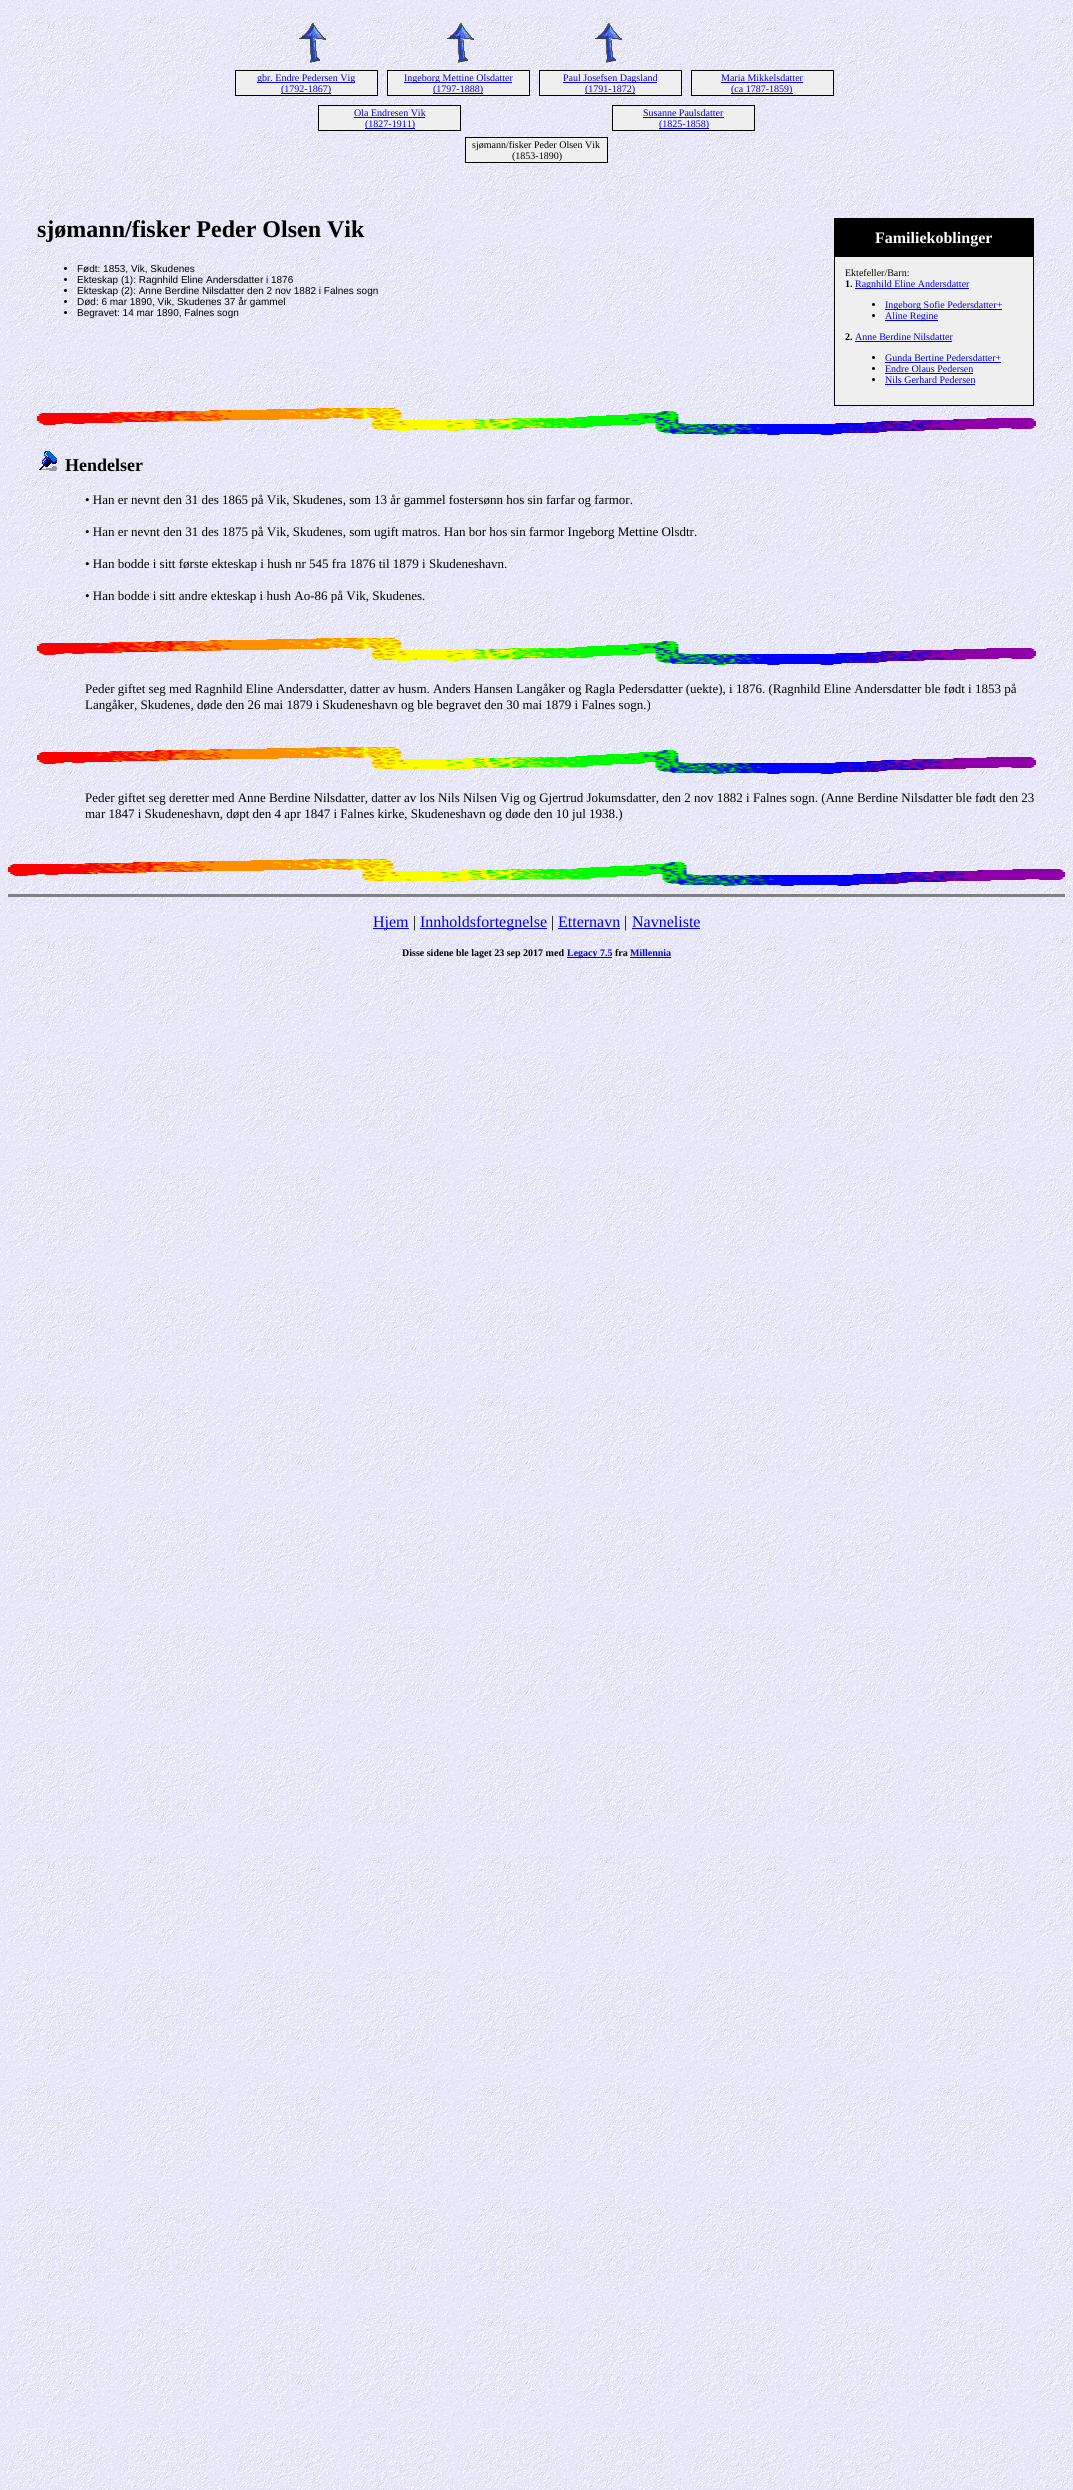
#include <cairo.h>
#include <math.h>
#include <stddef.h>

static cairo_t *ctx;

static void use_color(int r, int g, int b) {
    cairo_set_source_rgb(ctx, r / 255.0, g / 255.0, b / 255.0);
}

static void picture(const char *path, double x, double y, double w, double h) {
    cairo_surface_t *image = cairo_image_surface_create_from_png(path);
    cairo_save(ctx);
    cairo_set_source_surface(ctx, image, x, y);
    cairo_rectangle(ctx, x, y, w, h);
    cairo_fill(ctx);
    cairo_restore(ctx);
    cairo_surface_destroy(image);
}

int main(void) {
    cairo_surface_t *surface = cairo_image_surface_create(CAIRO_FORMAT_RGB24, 1073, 2490);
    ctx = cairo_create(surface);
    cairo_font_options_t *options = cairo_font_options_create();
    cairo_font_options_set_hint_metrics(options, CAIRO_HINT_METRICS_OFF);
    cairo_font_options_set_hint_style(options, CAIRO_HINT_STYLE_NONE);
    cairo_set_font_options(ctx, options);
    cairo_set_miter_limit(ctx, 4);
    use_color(255, 255, 255);
    cairo_paint(ctx);
    picture("img1.png", 0, 0, 1073, 2490);
    picture("img2.png", 299, 22, 27, 41);
    picture("img3.png", 447, 22, 27, 41);
    picture("img4.png", 595, 22, 27, 41);
    use_color(0, 0, 0);
    cairo_rectangle(ctx, 235, 70, 143, 26);
    cairo_fill(ctx);
    use_color(239, 239, 239);
    cairo_rectangle(ctx, 236, 71, 141, 24);
    cairo_fill(ctx);
    use_color(0, 0, 238);
    cairo_rectangle(ctx, 257, 82, 98, 1);
    cairo_fill(ctx);
    cairo_select_font_face(ctx, "Liberation Serif", CAIRO_FONT_SLANT_NORMAL, CAIRO_FONT_WEIGHT_NORMAL);
    cairo_set_font_size(ctx, 10);
    cairo_move_to(ctx, 257, 81);
    cairo_show_text(ctx, "gbr. Endre Pedersen Vig");
    cairo_rectangle(ctx, 281, 93, 50, 1);
    cairo_fill(ctx);
    cairo_move_to(ctx, 281, 92);
    cairo_show_text(ctx, "(1792-1867)");
    use_color(0, 0, 0);
    cairo_rectangle(ctx, 387, 70, 143, 26);
    cairo_fill(ctx);
    use_color(239, 239, 239);
    cairo_rectangle(ctx, 388, 71, 141, 24);
    cairo_fill(ctx);
    use_color(0, 0, 238);
    cairo_rectangle(ctx, 404, 82, 108, 1);
    cairo_fill(ctx);
    cairo_move_to(ctx, 404, 81);
    cairo_show_text(ctx, "Ingeborg Mettine Olsdatter");
    cairo_rectangle(ctx, 433, 93, 50, 1);
    cairo_fill(ctx);
    cairo_move_to(ctx, 433, 92);
    cairo_show_text(ctx, "(1797-1888)");
    use_color(0, 0, 0);
    cairo_rectangle(ctx, 539, 70, 143, 26);
    cairo_fill(ctx);
    use_color(239, 239, 239);
    cairo_rectangle(ctx, 540, 71, 141, 24);
    cairo_fill(ctx);
    use_color(0, 0, 238);
    cairo_rectangle(ctx, 563, 82, 94, 1);
    cairo_fill(ctx);
    cairo_move_to(ctx, 563, 81);
    cairo_show_text(ctx, "Paul Josefsen Dagsland");
    cairo_rectangle(ctx, 585, 93, 50, 1);
    cairo_fill(ctx);
    cairo_move_to(ctx, 585, 92);
    cairo_show_text(ctx, "(1791-1872)");
    use_color(0, 0, 0);
    cairo_rectangle(ctx, 691, 70, 143, 26);
    cairo_fill(ctx);
    use_color(239, 239, 239);
    cairo_rectangle(ctx, 692, 71, 141, 24);
    cairo_fill(ctx);
    use_color(0, 0, 238);
    cairo_move_to(ctx, 721, 81);
    cairo_show_text(ctx, "Maria Mikkelsdatter");
    cairo_rectangle(ctx, 721, 82, 82, 1);
    cairo_fill(ctx);
    cairo_rectangle(ctx, 731, 93, 62, 1);
    cairo_fill(ctx);
    cairo_move_to(ctx, 731, 92);
    cairo_show_text(ctx, "(ca 1787-1859)");
    use_color(0, 0, 0);
    cairo_rectangle(ctx, 318, 105, 143, 26);
    cairo_fill(ctx);
    use_color(239, 239, 239);
    cairo_rectangle(ctx, 319, 106, 141, 24);
    cairo_fill(ctx);
    use_color(0, 0, 238);
    cairo_move_to(ctx, 354, 116);
    cairo_show_text(ctx, "Ola Endresen Vik");
    cairo_rectangle(ctx, 354, 117, 71, 1);
    cairo_fill(ctx);
    cairo_rectangle(ctx, 365, 128, 50, 1);
    cairo_fill(ctx);
    cairo_move_to(ctx, 365, 127);
    cairo_show_text(ctx, "(1827-1911)");
    use_color(0, 0, 0);
    cairo_rectangle(ctx, 612, 105, 143, 26);
    cairo_fill(ctx);
    use_color(239, 239, 239);
    cairo_rectangle(ctx, 613, 106, 141, 24);
    cairo_fill(ctx);
    use_color(0, 0, 238);
    cairo_move_to(ctx, 643, 116);
    cairo_show_text(ctx, "Susanne Paulsdatter");
    cairo_rectangle(ctx, 643, 117, 81, 1);
    cairo_fill(ctx);
    cairo_rectangle(ctx, 659, 128, 50, 1);
    cairo_fill(ctx);
    cairo_move_to(ctx, 659, 127);
    cairo_show_text(ctx, "(1825-1858)");
    use_color(0, 0, 0);
    cairo_rectangle(ctx, 465, 137, 143, 26);
    cairo_fill(ctx);
    use_color(239, 239, 239);
    cairo_rectangle(ctx, 466, 138, 141, 24);
    cairo_fill(ctx);
    use_color(0, 0, 0);
    cairo_move_to(ctx, 472, 148);
    cairo_show_text(ctx, "sjømann/fisker Peder Olsen Vik");
    cairo_move_to(ctx, 512, 159);
    cairo_show_text(ctx, "(1853-1890)");
    cairo_select_font_face(ctx, "Liberation Serif", CAIRO_FONT_SLANT_NORMAL, CAIRO_FONT_WEIGHT_BOLD);
    cairo_set_font_size(ctx, 24);
    cairo_move_to(ctx, 37, 237);
    cairo_show_text(ctx, "sjømann/fisker Peder Olsen Vik");
    cairo_rectangle(ctx, 834, 218, 200, 188);
    cairo_fill(ctx);
    cairo_set_font_size(ctx, 16);
    use_color(255, 255, 255);
    cairo_move_to(ctx, 875, 243);
    cairo_show_text(ctx, "Familiekoblinger");
    use_color(239, 239, 239);
    cairo_rectangle(ctx, 835, 257, 198, 148);
    cairo_fill(ctx);
    cairo_select_font_face(ctx, "Liberation Serif", CAIRO_FONT_SLANT_NORMAL, CAIRO_FONT_WEIGHT_NORMAL);
    cairo_set_font_size(ctx, 10);
    use_color(0, 0, 0);
    cairo_move_to(ctx, 845, 276);
    cairo_show_text(ctx, "Ektefeller/Barn:");
    cairo_select_font_face(ctx, "Liberation Serif", CAIRO_FONT_SLANT_NORMAL, CAIRO_FONT_WEIGHT_BOLD);
    cairo_move_to(ctx, 845, 287);
    cairo_show_text(ctx, "1.");
    use_color(0, 0, 238);
    cairo_rectangle(ctx, 855, 288, 114, 1);
    cairo_fill(ctx);
    cairo_select_font_face(ctx, "Liberation Serif", CAIRO_FONT_SLANT_NORMAL, CAIRO_FONT_WEIGHT_NORMAL);
    cairo_move_to(ctx, 855, 287);
    cairo_show_text(ctx, "Ragnhild Eline Andersdatter");
    use_color(0, 0, 0);
    cairo_new_path(ctx);
    cairo_arc(ctx, 873.5, 304.5, 1.5, 0, 2 * M_PI);
    cairo_fill(ctx);
    use_color(0, 0, 238);
    cairo_rectangle(ctx, 885, 309, 117, 1);
    cairo_fill(ctx);
    cairo_move_to(ctx, 885, 308);
    cairo_show_text(ctx, "Ingeborg Sofie Pedersdatter+");
    use_color(0, 0, 0);
    cairo_new_path(ctx);
    cairo_arc(ctx, 873.5, 315.5, 1.5, 0, 2 * M_PI);
    cairo_fill(ctx);
    use_color(0, 0, 238);
    cairo_rectangle(ctx, 885, 320, 53, 1);
    cairo_fill(ctx);
    cairo_move_to(ctx, 885, 319);
    cairo_show_text(ctx, "Aline Regine");
    cairo_select_font_face(ctx, "Liberation Serif", CAIRO_FONT_SLANT_NORMAL, CAIRO_FONT_WEIGHT_BOLD);
    use_color(0, 0, 0);
    cairo_move_to(ctx, 845, 340);
    cairo_show_text(ctx, "2.");
    cairo_select_font_face(ctx, "Liberation Serif", CAIRO_FONT_SLANT_NORMAL, CAIRO_FONT_WEIGHT_NORMAL);
    use_color(0, 0, 238);
    cairo_move_to(ctx, 855, 340);
    cairo_show_text(ctx, "Anne Berdine Nilsdatter");
    cairo_rectangle(ctx, 855, 341, 97, 1);
    cairo_fill(ctx);
    use_color(0, 0, 0);
    cairo_arc(ctx, 873.5, 357.5, 1.5, 0, 2 * M_PI);
    cairo_fill(ctx);
    use_color(0, 0, 238);
    cairo_move_to(ctx, 885, 361);
    cairo_show_text(ctx, "Gunda Bertine Pedersdatter+");
    cairo_rectangle(ctx, 885, 362, 116, 1);
    cairo_fill(ctx);
    use_color(0, 0, 0);
    cairo_arc(ctx, 873.5, 368.5, 1.5, 0, 2 * M_PI);
    cairo_fill(ctx);
    use_color(0, 0, 238);
    cairo_move_to(ctx, 885, 372);
    cairo_show_text(ctx, "Endre Olaus Pedersen");
    cairo_rectangle(ctx, 885, 373, 88, 1);
    cairo_fill(ctx);
    use_color(0, 0, 0);
    cairo_arc(ctx, 873.5, 379.5, 1.5, 0, 2 * M_PI);
    cairo_fill(ctx);
    use_color(0, 0, 238);
    cairo_move_to(ctx, 885, 383);
    cairo_show_text(ctx, "Nils Gerhard Pedersen");
    cairo_rectangle(ctx, 885, 384, 90, 1);
    cairo_fill(ctx);
    use_color(0, 0, 0);
    cairo_arc(ctx, 65.5, 268.5, 1.5, 0, 2 * M_PI);
    cairo_fill(ctx);
    cairo_select_font_face(ctx, "Liberation Sans", CAIRO_FONT_SLANT_NORMAL, CAIRO_FONT_WEIGHT_NORMAL);
    cairo_move_to(ctx, 77, 272);
    cairo_show_text(ctx, "Født: 1853, Vik, Skudenes");
    cairo_new_path(ctx);
    cairo_arc(ctx, 65.5, 279.5, 1.5, 0, 2 * M_PI);
    cairo_fill(ctx);
    cairo_move_to(ctx, 77, 283);
    cairo_show_text(ctx, "Ekteskap (1): Ragnhild Eline Andersdatter i 1876");
    cairo_new_path(ctx);
    cairo_arc(ctx, 65.5, 290.5, 1.5, 0, 2 * M_PI);
    cairo_fill(ctx);
    cairo_move_to(ctx, 77, 294);
    cairo_show_text(ctx, "Ekteskap (2): Anne Berdine Nilsdatter den 2 nov 1882 i Falnes sogn");
    cairo_new_path(ctx);
    cairo_arc(ctx, 65.5, 301.5, 1.5, 0, 2 * M_PI);
    cairo_fill(ctx);
    cairo_move_to(ctx, 77, 305);
    cairo_show_text(ctx, "Død: 6 mar 1890, Vik, Skudenes 37 år gammel");
    cairo_new_path(ctx);
    cairo_arc(ctx, 65.5, 312.5, 1.5, 0, 2 * M_PI);
    cairo_fill(ctx);
    cairo_move_to(ctx, 77, 316);
    cairo_show_text(ctx, "Begravet: 14 mar 1890, Falnes sogn");
    picture("img5.png", 37, 408, 999, 27);
    picture("img6.png", 39, 451, 18, 20);
    cairo_select_font_face(ctx, "Liberation Serif", CAIRO_FONT_SLANT_NORMAL, CAIRO_FONT_WEIGHT_BOLD);
    cairo_set_font_size(ctx, 18);
    cairo_move_to(ctx, 65, 471);
    cairo_show_text(ctx, "Hendelser");
    cairo_select_font_face(ctx, "Liberation Serif", CAIRO_FONT_SLANT_NORMAL, CAIRO_FONT_WEIGHT_NORMAL);
    cairo_set_font_size(ctx, 13);
    cairo_move_to(ctx, 85, 504);
    cairo_show_text(ctx, "• Han er nevnt den 31 des 1865 på Vik, Skudenes, som 13 år gammel fostersønn hos sin farfar og farmor.");
    cairo_move_to(ctx, 85, 536);
    cairo_show_text(ctx, "• Han er nevnt den 31 des 1875 på Vik, Skudenes, som ugift matros. Han bor hos sin farmor Ingeborg Mettine Olsdtr.");
    cairo_move_to(ctx, 85, 568);
    cairo_show_text(ctx, "• Han bodde i sitt første ekteskap i hush nr 545 fra 1876 til 1879 i Skudeneshavn.");
    cairo_move_to(ctx, 85, 600);
    cairo_show_text(ctx, "• Han bodde i sitt andre ekteskap i hush Ao-86 på Vik, Skudenes.");
    picture("img5.png", 37, 638, 999, 27);
    cairo_move_to(ctx, 85, 693);
    cairo_show_text(ctx, "Peder giftet seg med Ragnhild Eline Andersdatter, datter av husm. Anders Hansen Langåker og Ragla Pedersdatter (uekte), i 1876. (Ragnhild Eline Andersdatter ble født i 1853 på");
    cairo_move_to(ctx, 85, 709);
    cairo_show_text(ctx, "Langåker, Skudenes, døde den 26 mai 1879 i Skudeneshavn og ble begravet den 30 mai 1879 i Falnes sogn.)");
    picture("img7.png", 37, 747, 999, 27);
    cairo_move_to(ctx, 85, 802);
    cairo_show_text(ctx, "Peder giftet seg deretter med Anne Berdine Nilsdatter, datter av los Nils Nilsen Vig og Gjertrud Jokumsdatter, den 2 nov 1882 i Falnes sogn. (Anne Berdine Nilsdatter ble født den 23");
    cairo_move_to(ctx, 85, 818);
    cairo_show_text(ctx, "mar 1847 i Skudeneshavn, døpt den 4 apr 1847 i Falnes kirke, Skudeneshavn og døde den 10 jul 1938.)");
    picture("img8.png", 8, 859, 1057, 27);
    use_color(128, 128, 128);
    cairo_rectangle(ctx, 8, 894, 1057, 3);
    cairo_fill(ctx);
    use_color(0, 0, 238);
    cairo_rectangle(ctx, 373, 928, 36, 1);
    cairo_fill(ctx);
    cairo_set_font_size(ctx, 16);
    cairo_move_to(ctx, 373, 927);
    cairo_show_text(ctx, "Hjem");
    use_color(0, 0, 0);
    cairo_move_to(ctx, 413, 927);
    cairo_show_text(ctx, "|");
    use_color(0, 0, 238);
    cairo_rectangle(ctx, 420, 928, 127, 1);
    cairo_fill(ctx);
    cairo_move_to(ctx, 420, 927);
    cairo_show_text(ctx, "Innholdsfortegnelse");
    use_color(0, 0, 0);
    cairo_move_to(ctx, 551, 927);
    cairo_show_text(ctx, "|");
    use_color(0, 0, 238);
    cairo_move_to(ctx, 558, 927);
    cairo_show_text(ctx, "Etternavn");
    cairo_rectangle(ctx, 558, 928, 62, 1);
    cairo_fill(ctx);
    use_color(0, 0, 0);
    cairo_move_to(ctx, 624, 927);
    cairo_show_text(ctx, "|");
    use_color(0, 0, 238);
    cairo_move_to(ctx, 632, 927);
    cairo_show_text(ctx, "Navneliste");
    cairo_rectangle(ctx, 632, 928, 68, 1);
    cairo_fill(ctx);
    cairo_select_font_face(ctx, "Liberation Serif", CAIRO_FONT_SLANT_NORMAL, CAIRO_FONT_WEIGHT_BOLD);
    cairo_set_font_size(ctx, 10);
    use_color(0, 0, 0);
    cairo_move_to(ctx, 402, 956);
    cairo_show_text(ctx, "Disse sidene ble laget 23 sep 2017 med");
    use_color(0, 0, 238);
    cairo_rectangle(ctx, 567, 957, 45, 1);
    cairo_fill(ctx);
    cairo_move_to(ctx, 567, 956);
    cairo_show_text(ctx, "Legacy 7.5");
    use_color(0, 0, 0);
    cairo_move_to(ctx, 615, 956);
    cairo_show_text(ctx, "fra");
    use_color(0, 0, 238);
    cairo_move_to(ctx, 630, 956);
    cairo_show_text(ctx, "Millennia");
    cairo_rectangle(ctx, 630, 957, 41, 1);
    cairo_fill(ctx);
    cairo_surface_write_to_png(surface, "result.png");
    cairo_font_options_destroy(options);
    cairo_destroy(ctx);
    cairo_surface_destroy(surface);
    return 0;
}
